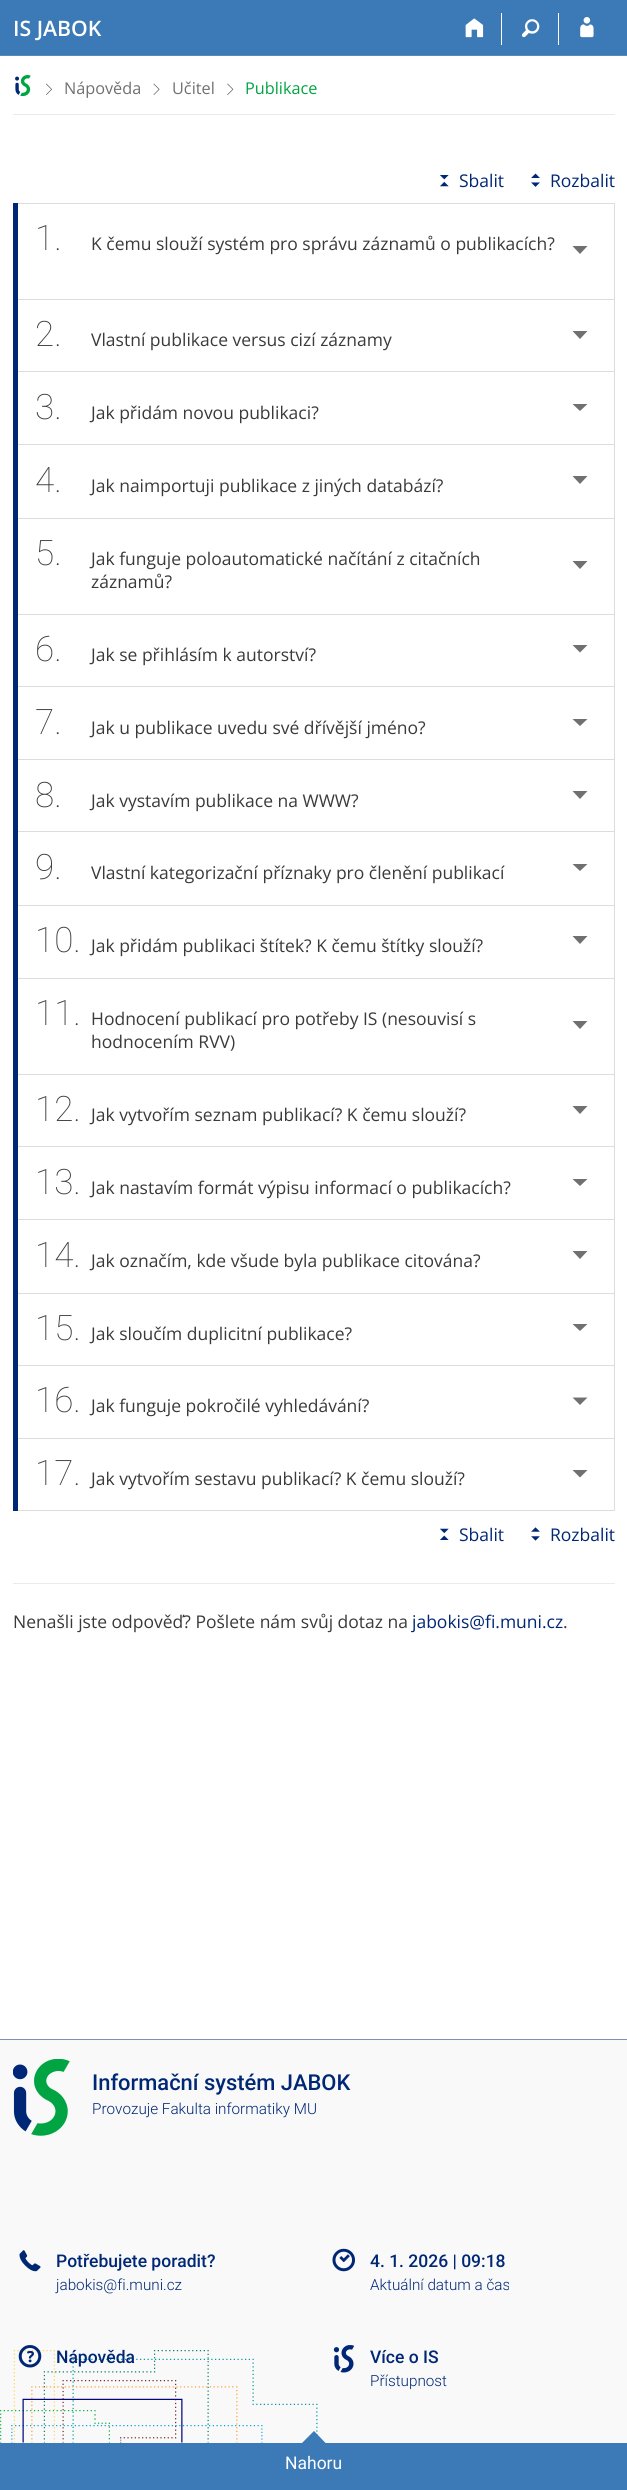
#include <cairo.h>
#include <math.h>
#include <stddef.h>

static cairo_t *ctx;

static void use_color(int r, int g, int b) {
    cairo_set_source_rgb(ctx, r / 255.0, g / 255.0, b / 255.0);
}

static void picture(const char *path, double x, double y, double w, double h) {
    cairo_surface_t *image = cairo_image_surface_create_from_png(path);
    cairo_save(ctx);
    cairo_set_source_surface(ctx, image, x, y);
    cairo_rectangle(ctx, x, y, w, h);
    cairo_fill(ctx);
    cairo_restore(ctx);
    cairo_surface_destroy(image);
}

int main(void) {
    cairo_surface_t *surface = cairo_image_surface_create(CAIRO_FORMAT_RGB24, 627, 2490);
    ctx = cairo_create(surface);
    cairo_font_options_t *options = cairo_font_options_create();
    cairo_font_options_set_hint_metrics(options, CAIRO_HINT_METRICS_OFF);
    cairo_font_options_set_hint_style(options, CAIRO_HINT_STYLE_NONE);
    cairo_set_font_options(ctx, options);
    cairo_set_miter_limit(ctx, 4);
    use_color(255, 255, 255);
    cairo_paint(ctx);
    use_color(60, 122, 183);
    cairo_rectangle(ctx, 0, 0, 627, 55);
    cairo_fill(ctx);
    use_color(92, 136, 182);
    cairo_rectangle(ctx, 0, 55, 627, 1);
    cairo_fill(ctx);
    cairo_select_font_face(ctx, "Open Sans SemiBold", CAIRO_FONT_SLANT_NORMAL, CAIRO_FONT_WEIGHT_NORMAL);
    cairo_set_font_size(ctx, 21.25);
    use_color(255, 255, 255);
    cairo_move_to(ctx, 13, 36);
    cairo_show_text(ctx, "IS JABOK");
    cairo_rectangle(ctx, 501, 13, 1, 32);
    cairo_fill(ctx);
    picture("img1.png", 465, 18, 19, 20);
    cairo_rectangle(ctx, 558, 13, 1, 32);
    cairo_fill(ctx);
    picture("img2.png", 521, 19, 19, 19);
    picture("img3.png", 580, 17, 14, 21);
    picture("img4.png", 15, 75, 16, 21);
    picture("img5.png", 46, 83, 6, 12);
    cairo_select_font_face(ctx, "Open Sans", CAIRO_FONT_SLANT_NORMAL, CAIRO_FONT_WEIGHT_NORMAL);
    cairo_set_font_size(ctx, 16.25);
    use_color(112, 112, 112);
    cairo_move_to(ctx, 64, 94);
    cairo_show_text(ctx, "Nápověda");
    picture("img6.png", 153, 83, 7, 12);
    cairo_move_to(ctx, 172, 94);
    cairo_show_text(ctx, "Učitel");
    picture("img7.png", 227, 83, 7, 12);
    use_color(0, 164, 66);
    cairo_move_to(ctx, 245, 94);
    cairo_show_text(ctx, "Publikace");
    use_color(234, 234, 234);
    cairo_rectangle(ctx, 13, 114, 602, 1);
    cairo_fill(ctx);
    picture("img8.png", 440, 175, 9, 12);
    cairo_set_font_size(ctx, 17.5);
    use_color(0, 39, 118);
    cairo_move_to(ctx, 459, 187);
    cairo_show_text(ctx, "Sbalit");
    picture("img9.png", 531, 173, 9, 14);
    cairo_move_to(ctx, 550, 187);
    cairo_show_text(ctx, "Rozbalit");
    cairo_new_path(ctx);
    cairo_move_to(ctx, 13, 203);
    cairo_line_to(ctx, 13, 299);
    cairo_line_to(ctx, 610, 299);
    cairo_line_to(ctx, 18, 299);
    cairo_line_to(ctx, 18, 203);
    cairo_close_path(ctx);
    cairo_fill(ctx);
    use_color(221, 221, 221);
    cairo_rectangle(ctx, 18, 203, 597, 1);
    cairo_fill(ctx);
    cairo_rectangle(ctx, 614, 203, 1, 96);
    cairo_fill(ctx);
    cairo_select_font_face(ctx, "Roboto Thin", CAIRO_FONT_SLANT_NORMAL, CAIRO_FONT_WEIGHT_NORMAL);
    cairo_set_font_size(ctx, 35);
    use_color(58, 58, 58);
    cairo_move_to(ctx, 35, 250);
    cairo_show_text(ctx, "1.");
    cairo_select_font_face(ctx, "Open Sans", CAIRO_FONT_SLANT_NORMAL, CAIRO_FONT_WEIGHT_NORMAL);
    cairo_set_font_size(ctx, 17.5);
    cairo_move_to(ctx, 91, 250);
    cairo_show_text(ctx, "K čemu slouží systém pro správu záznamů o publikacích?");
    use_color(112, 112, 112);
    cairo_new_path(ctx);
    cairo_move_to(ctx, 572.5, 246);
    cairo_line_to(ctx, 587.5, 246);
    cairo_line_to(ctx, 580, 254);
    cairo_close_path(ctx);
    cairo_fill(ctx);
    use_color(0, 39, 118);
    cairo_rectangle(ctx, 13, 299, 5, 72);
    cairo_fill(ctx);
    use_color(221, 221, 221);
    cairo_rectangle(ctx, 18, 299, 597, 1);
    cairo_fill(ctx);
    cairo_rectangle(ctx, 614, 299, 1, 72);
    cairo_fill(ctx);
    cairo_select_font_face(ctx, "Roboto Thin", CAIRO_FONT_SLANT_NORMAL, CAIRO_FONT_WEIGHT_NORMAL);
    cairo_set_font_size(ctx, 35);
    use_color(58, 58, 58);
    cairo_move_to(ctx, 35, 346);
    cairo_show_text(ctx, "2.");
    cairo_select_font_face(ctx, "Open Sans", CAIRO_FONT_SLANT_NORMAL, CAIRO_FONT_WEIGHT_NORMAL);
    cairo_set_font_size(ctx, 17.5);
    cairo_move_to(ctx, 91, 346);
    cairo_show_text(ctx, "Vlastní publikace versus cizí záznamy");
    use_color(112, 112, 112);
    cairo_new_path(ctx);
    cairo_move_to(ctx, 572.5, 331);
    cairo_line_to(ctx, 587.5, 331);
    cairo_line_to(ctx, 580, 339);
    cairo_close_path(ctx);
    cairo_fill(ctx);
    use_color(0, 39, 118);
    cairo_new_path(ctx);
    cairo_move_to(ctx, 13, 371);
    cairo_line_to(ctx, 13, 444);
    cairo_line_to(ctx, 610, 444);
    cairo_line_to(ctx, 18, 444);
    cairo_line_to(ctx, 18, 371);
    cairo_line_to(ctx, 610, 371);
    cairo_close_path(ctx);
    cairo_fill(ctx);
    use_color(221, 221, 221);
    cairo_rectangle(ctx, 18, 371, 597, 1);
    cairo_fill(ctx);
    cairo_rectangle(ctx, 614, 371, 1, 73);
    cairo_fill(ctx);
    cairo_select_font_face(ctx, "Roboto Thin", CAIRO_FONT_SLANT_NORMAL, CAIRO_FONT_WEIGHT_NORMAL);
    cairo_set_font_size(ctx, 35);
    use_color(58, 58, 58);
    cairo_move_to(ctx, 35, 419);
    cairo_show_text(ctx, "3.");
    cairo_select_font_face(ctx, "Open Sans", CAIRO_FONT_SLANT_NORMAL, CAIRO_FONT_WEIGHT_NORMAL);
    cairo_set_font_size(ctx, 17.5);
    cairo_move_to(ctx, 91, 419);
    cairo_show_text(ctx, "Jak přidám novou publikaci?");
    use_color(112, 112, 112);
    cairo_new_path(ctx);
    cairo_move_to(ctx, 572.5, 404);
    cairo_line_to(ctx, 587.5, 404);
    cairo_line_to(ctx, 580, 411);
    cairo_close_path(ctx);
    cairo_fill(ctx);
    use_color(0, 39, 118);
    cairo_new_path(ctx);
    cairo_move_to(ctx, 13, 444);
    cairo_line_to(ctx, 13, 518);
    cairo_line_to(ctx, 610, 518);
    cairo_line_to(ctx, 18, 518);
    cairo_line_to(ctx, 18, 444);
    cairo_close_path(ctx);
    cairo_fill(ctx);
    use_color(221, 221, 221);
    cairo_rectangle(ctx, 18, 444, 597, 1);
    cairo_fill(ctx);
    cairo_rectangle(ctx, 614, 444, 1, 74);
    cairo_fill(ctx);
    cairo_select_font_face(ctx, "Roboto Thin", CAIRO_FONT_SLANT_NORMAL, CAIRO_FONT_WEIGHT_NORMAL);
    cairo_set_font_size(ctx, 35);
    use_color(58, 58, 58);
    cairo_move_to(ctx, 35, 492);
    cairo_show_text(ctx, "4.");
    cairo_select_font_face(ctx, "Open Sans", CAIRO_FONT_SLANT_NORMAL, CAIRO_FONT_WEIGHT_NORMAL);
    cairo_set_font_size(ctx, 17.5);
    cairo_move_to(ctx, 91, 492);
    cairo_show_text(ctx, "Jak naimportuji publikace z jiných databází?");
    use_color(112, 112, 112);
    cairo_new_path(ctx);
    cairo_move_to(ctx, 572.5, 476);
    cairo_line_to(ctx, 587.5, 476);
    cairo_line_to(ctx, 580, 484);
    cairo_close_path(ctx);
    cairo_fill(ctx);
    use_color(0, 39, 118);
    cairo_new_path(ctx);
    cairo_move_to(ctx, 13, 518);
    cairo_line_to(ctx, 13, 614);
    cairo_line_to(ctx, 610, 614);
    cairo_line_to(ctx, 18, 614);
    cairo_line_to(ctx, 18, 518);
    cairo_close_path(ctx);
    cairo_fill(ctx);
    use_color(221, 221, 221);
    cairo_rectangle(ctx, 18, 518, 597, 1);
    cairo_fill(ctx);
    cairo_rectangle(ctx, 614, 518, 1, 96);
    cairo_fill(ctx);
    cairo_select_font_face(ctx, "Roboto Thin", CAIRO_FONT_SLANT_NORMAL, CAIRO_FONT_WEIGHT_NORMAL);
    cairo_set_font_size(ctx, 35);
    use_color(58, 58, 58);
    cairo_move_to(ctx, 35, 565);
    cairo_show_text(ctx, "5.");
    cairo_select_font_face(ctx, "Open Sans", CAIRO_FONT_SLANT_NORMAL, CAIRO_FONT_WEIGHT_NORMAL);
    cairo_set_font_size(ctx, 17.5);
    cairo_move_to(ctx, 91, 565);
    cairo_show_text(ctx, "Jak funguje poloautomatické načítání z citačních");
    use_color(112, 112, 112);
    cairo_new_path(ctx);
    cairo_move_to(ctx, 572.5, 561);
    cairo_line_to(ctx, 587.5, 561);
    cairo_line_to(ctx, 580, 569);
    cairo_close_path(ctx);
    cairo_fill(ctx);
    use_color(58, 58, 58);
    cairo_move_to(ctx, 91, 588);
    cairo_show_text(ctx, "záznamů?");
    use_color(0, 39, 118);
    cairo_rectangle(ctx, 13, 614, 5, 72);
    cairo_fill(ctx);
    use_color(221, 221, 221);
    cairo_rectangle(ctx, 18, 614, 597, 1);
    cairo_fill(ctx);
    cairo_rectangle(ctx, 614, 614, 1, 72);
    cairo_fill(ctx);
    cairo_select_font_face(ctx, "Roboto Thin", CAIRO_FONT_SLANT_NORMAL, CAIRO_FONT_WEIGHT_NORMAL);
    cairo_set_font_size(ctx, 35);
    use_color(58, 58, 58);
    cairo_move_to(ctx, 35, 661);
    cairo_show_text(ctx, "6.");
    cairo_select_font_face(ctx, "Open Sans", CAIRO_FONT_SLANT_NORMAL, CAIRO_FONT_WEIGHT_NORMAL);
    cairo_set_font_size(ctx, 17.5);
    cairo_move_to(ctx, 91, 661);
    cairo_show_text(ctx, "Jak se přihlásím k autorství?");
    use_color(112, 112, 112);
    cairo_new_path(ctx);
    cairo_move_to(ctx, 572.5, 645);
    cairo_line_to(ctx, 587.5, 645);
    cairo_line_to(ctx, 580, 652.5);
    cairo_close_path(ctx);
    cairo_fill(ctx);
    use_color(0, 39, 118);
    cairo_new_path(ctx);
    cairo_move_to(ctx, 13, 686);
    cairo_line_to(ctx, 13, 759);
    cairo_line_to(ctx, 610, 759);
    cairo_line_to(ctx, 18, 759);
    cairo_line_to(ctx, 18, 686);
    cairo_line_to(ctx, 610, 686);
    cairo_close_path(ctx);
    cairo_fill(ctx);
    use_color(221, 221, 221);
    cairo_rectangle(ctx, 18, 686, 597, 1);
    cairo_fill(ctx);
    cairo_rectangle(ctx, 614, 686, 1, 73);
    cairo_fill(ctx);
    cairo_select_font_face(ctx, "Roboto Thin", CAIRO_FONT_SLANT_NORMAL, CAIRO_FONT_WEIGHT_NORMAL);
    cairo_set_font_size(ctx, 35);
    use_color(58, 58, 58);
    cairo_move_to(ctx, 35, 734);
    cairo_show_text(ctx, "7.");
    cairo_select_font_face(ctx, "Open Sans", CAIRO_FONT_SLANT_NORMAL, CAIRO_FONT_WEIGHT_NORMAL);
    cairo_set_font_size(ctx, 17.5);
    cairo_move_to(ctx, 91, 734);
    cairo_show_text(ctx, "Jak u publikace uvedu své dřívější jméno?");
    use_color(112, 112, 112);
    cairo_new_path(ctx);
    cairo_move_to(ctx, 572.5, 719);
    cairo_line_to(ctx, 587.5, 719);
    cairo_line_to(ctx, 580, 726);
    cairo_close_path(ctx);
    cairo_fill(ctx);
    use_color(0, 39, 118);
    cairo_rectangle(ctx, 13, 759, 5, 72);
    cairo_fill(ctx);
    use_color(221, 221, 221);
    cairo_rectangle(ctx, 18, 759, 597, 1);
    cairo_fill(ctx);
    cairo_rectangle(ctx, 614, 759, 1, 72);
    cairo_fill(ctx);
    cairo_select_font_face(ctx, "Roboto Thin", CAIRO_FONT_SLANT_NORMAL, CAIRO_FONT_WEIGHT_NORMAL);
    cairo_set_font_size(ctx, 35);
    use_color(58, 58, 58);
    cairo_move_to(ctx, 35, 807);
    cairo_show_text(ctx, "8.");
    cairo_select_font_face(ctx, "Open Sans", CAIRO_FONT_SLANT_NORMAL, CAIRO_FONT_WEIGHT_NORMAL);
    cairo_set_font_size(ctx, 17.5);
    cairo_move_to(ctx, 91, 807);
    cairo_show_text(ctx, "Jak vystavím publikace na WWW?");
    use_color(112, 112, 112);
    cairo_new_path(ctx);
    cairo_move_to(ctx, 572.5, 791);
    cairo_line_to(ctx, 587.5, 791);
    cairo_line_to(ctx, 580, 799);
    cairo_close_path(ctx);
    cairo_fill(ctx);
    use_color(0, 39, 118);
    cairo_new_path(ctx);
    cairo_move_to(ctx, 13, 831);
    cairo_line_to(ctx, 13, 905);
    cairo_line_to(ctx, 18, 905);
    cairo_line_to(ctx, 18, 831);
    cairo_line_to(ctx, 610, 831);
    cairo_close_path(ctx);
    cairo_fill(ctx);
    use_color(221, 221, 221);
    cairo_rectangle(ctx, 18, 831, 597, 1);
    cairo_fill(ctx);
    cairo_rectangle(ctx, 614, 831, 1, 74);
    cairo_fill(ctx);
    cairo_select_font_face(ctx, "Roboto Thin", CAIRO_FONT_SLANT_NORMAL, CAIRO_FONT_WEIGHT_NORMAL);
    cairo_set_font_size(ctx, 35);
    use_color(58, 58, 58);
    cairo_move_to(ctx, 35, 879);
    cairo_show_text(ctx, "9.");
    cairo_select_font_face(ctx, "Open Sans", CAIRO_FONT_SLANT_NORMAL, CAIRO_FONT_WEIGHT_NORMAL);
    cairo_set_font_size(ctx, 17.5);
    cairo_move_to(ctx, 91, 879);
    cairo_show_text(ctx, "Vlastní kategorizační příznaky pro členění publikací");
    use_color(112, 112, 112);
    cairo_new_path(ctx);
    cairo_move_to(ctx, 572.5, 864);
    cairo_line_to(ctx, 587.5, 864);
    cairo_line_to(ctx, 580, 871);
    cairo_close_path(ctx);
    cairo_fill(ctx);
    use_color(0, 39, 118);
    cairo_new_path(ctx);
    cairo_move_to(ctx, 13, 905);
    cairo_line_to(ctx, 13, 978);
    cairo_line_to(ctx, 610, 978);
    cairo_line_to(ctx, 18, 978);
    cairo_line_to(ctx, 18, 905);
    cairo_close_path(ctx);
    cairo_fill(ctx);
    use_color(221, 221, 221);
    cairo_rectangle(ctx, 18, 905, 597, 1);
    cairo_fill(ctx);
    cairo_rectangle(ctx, 614, 905, 1, 73);
    cairo_fill(ctx);
    cairo_select_font_face(ctx, "Roboto Thin", CAIRO_FONT_SLANT_NORMAL, CAIRO_FONT_WEIGHT_NORMAL);
    cairo_set_font_size(ctx, 35);
    use_color(58, 58, 58);
    cairo_move_to(ctx, 35, 952);
    cairo_show_text(ctx, "10.");
    cairo_select_font_face(ctx, "Open Sans", CAIRO_FONT_SLANT_NORMAL, CAIRO_FONT_WEIGHT_NORMAL);
    cairo_set_font_size(ctx, 17.5);
    cairo_move_to(ctx, 91, 952);
    cairo_show_text(ctx, "Jak přidám publikaci štítek? K čemu štítky slouží?");
    use_color(112, 112, 112);
    cairo_new_path(ctx);
    cairo_move_to(ctx, 572.5, 936);
    cairo_line_to(ctx, 587.5, 936);
    cairo_line_to(ctx, 580, 944);
    cairo_close_path(ctx);
    cairo_fill(ctx);
    use_color(0, 39, 118);
    cairo_new_path(ctx);
    cairo_move_to(ctx, 13, 978);
    cairo_line_to(ctx, 13, 1074);
    cairo_line_to(ctx, 610, 1074);
    cairo_line_to(ctx, 18, 1074);
    cairo_line_to(ctx, 18, 978);
    cairo_close_path(ctx);
    cairo_fill(ctx);
    use_color(221, 221, 221);
    cairo_rectangle(ctx, 18, 978, 597, 1);
    cairo_fill(ctx);
    cairo_rectangle(ctx, 614, 978, 1, 96);
    cairo_fill(ctx);
    cairo_select_font_face(ctx, "Roboto Thin", CAIRO_FONT_SLANT_NORMAL, CAIRO_FONT_WEIGHT_NORMAL);
    cairo_set_font_size(ctx, 35);
    use_color(58, 58, 58);
    cairo_move_to(ctx, 35, 1025);
    cairo_show_text(ctx, "11.");
    cairo_select_font_face(ctx, "Open Sans", CAIRO_FONT_SLANT_NORMAL, CAIRO_FONT_WEIGHT_NORMAL);
    cairo_set_font_size(ctx, 17.5);
    cairo_move_to(ctx, 91, 1025);
    cairo_show_text(ctx, "Hodnocení publikací pro potřeby IS (nesouvisí s");
    use_color(112, 112, 112);
    cairo_new_path(ctx);
    cairo_move_to(ctx, 572.5, 1021);
    cairo_line_to(ctx, 587.5, 1021);
    cairo_line_to(ctx, 580, 1029);
    cairo_close_path(ctx);
    cairo_fill(ctx);
    use_color(58, 58, 58);
    cairo_move_to(ctx, 91, 1048);
    cairo_show_text(ctx, "hodnocením RVV)");
    use_color(0, 39, 118);
    cairo_rectangle(ctx, 13, 1074, 5, 72);
    cairo_fill(ctx);
    use_color(221, 221, 221);
    cairo_rectangle(ctx, 18, 1074, 597, 1);
    cairo_fill(ctx);
    cairo_rectangle(ctx, 614, 1074, 1, 72);
    cairo_fill(ctx);
    cairo_select_font_face(ctx, "Roboto Thin", CAIRO_FONT_SLANT_NORMAL, CAIRO_FONT_WEIGHT_NORMAL);
    cairo_set_font_size(ctx, 35);
    use_color(58, 58, 58);
    cairo_move_to(ctx, 35, 1121);
    cairo_show_text(ctx, "12.");
    cairo_select_font_face(ctx, "Open Sans", CAIRO_FONT_SLANT_NORMAL, CAIRO_FONT_WEIGHT_NORMAL);
    cairo_set_font_size(ctx, 17.5);
    cairo_move_to(ctx, 91, 1121);
    cairo_show_text(ctx, "Jak vytvořím seznam publikací? K čemu slouží?");
    use_color(112, 112, 112);
    cairo_new_path(ctx);
    cairo_move_to(ctx, 572.5, 1106);
    cairo_line_to(ctx, 587.5, 1106);
    cairo_line_to(ctx, 580, 1114);
    cairo_close_path(ctx);
    cairo_fill(ctx);
    use_color(0, 39, 118);
    cairo_new_path(ctx);
    cairo_move_to(ctx, 13, 1146);
    cairo_line_to(ctx, 13, 1219);
    cairo_line_to(ctx, 610, 1219);
    cairo_line_to(ctx, 18, 1219);
    cairo_line_to(ctx, 18, 1146);
    cairo_line_to(ctx, 610, 1146);
    cairo_close_path(ctx);
    cairo_fill(ctx);
    use_color(221, 221, 221);
    cairo_rectangle(ctx, 18, 1146, 597, 1);
    cairo_fill(ctx);
    cairo_rectangle(ctx, 614, 1146, 1, 73);
    cairo_fill(ctx);
    cairo_select_font_face(ctx, "Roboto Thin", CAIRO_FONT_SLANT_NORMAL, CAIRO_FONT_WEIGHT_NORMAL);
    cairo_set_font_size(ctx, 35);
    use_color(58, 58, 58);
    cairo_move_to(ctx, 35, 1194);
    cairo_show_text(ctx, "13.");
    cairo_select_font_face(ctx, "Open Sans", CAIRO_FONT_SLANT_NORMAL, CAIRO_FONT_WEIGHT_NORMAL);
    cairo_set_font_size(ctx, 17.5);
    cairo_move_to(ctx, 91, 1194);
    cairo_show_text(ctx, "Jak nastavím formát výpisu informací o publikacích?");
    use_color(112, 112, 112);
    cairo_new_path(ctx);
    cairo_move_to(ctx, 572.5, 1179);
    cairo_line_to(ctx, 587.5, 1179);
    cairo_line_to(ctx, 580, 1186);
    cairo_close_path(ctx);
    cairo_fill(ctx);
    use_color(0, 39, 118);
    cairo_new_path(ctx);
    cairo_move_to(ctx, 13, 1219);
    cairo_line_to(ctx, 13, 1293);
    cairo_line_to(ctx, 610, 1293);
    cairo_line_to(ctx, 610, 1292);
    cairo_line_to(ctx, 18, 1292);
    cairo_line_to(ctx, 18, 1219);
    cairo_close_path(ctx);
    cairo_fill(ctx);
    use_color(255, 255, 255);
    cairo_rectangle(ctx, 18, 1292, 592, 1);
    cairo_fill(ctx);
    use_color(221, 221, 221);
    cairo_rectangle(ctx, 18, 1219, 597, 1);
    cairo_fill(ctx);
    cairo_rectangle(ctx, 614, 1219, 1, 74);
    cairo_fill(ctx);
    cairo_select_font_face(ctx, "Roboto Thin", CAIRO_FONT_SLANT_NORMAL, CAIRO_FONT_WEIGHT_NORMAL);
    cairo_set_font_size(ctx, 35);
    use_color(58, 58, 58);
    cairo_move_to(ctx, 35, 1267);
    cairo_show_text(ctx, "14.");
    cairo_select_font_face(ctx, "Open Sans", CAIRO_FONT_SLANT_NORMAL, CAIRO_FONT_WEIGHT_NORMAL);
    cairo_set_font_size(ctx, 17.5);
    cairo_move_to(ctx, 91, 1267);
    cairo_show_text(ctx, "Jak označím, kde všude byla publikace citována?");
    use_color(112, 112, 112);
    cairo_new_path(ctx);
    cairo_move_to(ctx, 572.5, 1251);
    cairo_line_to(ctx, 587.5, 1251);
    cairo_line_to(ctx, 580, 1259);
    cairo_close_path(ctx);
    cairo_fill(ctx);
    use_color(0, 39, 118);
    cairo_rectangle(ctx, 13, 1293, 5, 72);
    cairo_fill(ctx);
    use_color(221, 221, 221);
    cairo_rectangle(ctx, 18, 1293, 597, 1);
    cairo_fill(ctx);
    cairo_rectangle(ctx, 614, 1293, 1, 72);
    cairo_fill(ctx);
    cairo_select_font_face(ctx, "Roboto Thin", CAIRO_FONT_SLANT_NORMAL, CAIRO_FONT_WEIGHT_NORMAL);
    cairo_set_font_size(ctx, 35);
    use_color(58, 58, 58);
    cairo_move_to(ctx, 35, 1340);
    cairo_show_text(ctx, "15.");
    cairo_select_font_face(ctx, "Open Sans", CAIRO_FONT_SLANT_NORMAL, CAIRO_FONT_WEIGHT_NORMAL);
    cairo_set_font_size(ctx, 17.5);
    cairo_move_to(ctx, 91, 1340);
    cairo_show_text(ctx, "Jak sloučím duplicitní publikace?");
    use_color(112, 112, 112);
    cairo_new_path(ctx);
    cairo_move_to(ctx, 572.5, 1324);
    cairo_line_to(ctx, 587.5, 1324);
    cairo_line_to(ctx, 580, 1331);
    cairo_close_path(ctx);
    cairo_fill(ctx);
    use_color(0, 39, 118);
    cairo_new_path(ctx);
    cairo_move_to(ctx, 13, 1365);
    cairo_line_to(ctx, 13, 1438);
    cairo_line_to(ctx, 610, 1438);
    cairo_line_to(ctx, 18, 1438);
    cairo_line_to(ctx, 18, 1365);
    cairo_close_path(ctx);
    cairo_fill(ctx);
    use_color(221, 221, 221);
    cairo_rectangle(ctx, 18, 1365, 597, 1);
    cairo_fill(ctx);
    cairo_rectangle(ctx, 614, 1365, 1, 73);
    cairo_fill(ctx);
    cairo_select_font_face(ctx, "Roboto Thin", CAIRO_FONT_SLANT_NORMAL, CAIRO_FONT_WEIGHT_NORMAL);
    cairo_set_font_size(ctx, 35);
    use_color(58, 58, 58);
    cairo_move_to(ctx, 35, 1412);
    cairo_show_text(ctx, "16.");
    cairo_select_font_face(ctx, "Open Sans", CAIRO_FONT_SLANT_NORMAL, CAIRO_FONT_WEIGHT_NORMAL);
    cairo_set_font_size(ctx, 17.5);
    cairo_move_to(ctx, 91, 1412);
    cairo_show_text(ctx, "Jak funguje pokročilé vyhledávání?");
    use_color(112, 112, 112);
    cairo_new_path(ctx);
    cairo_move_to(ctx, 572.5, 1397.5);
    cairo_line_to(ctx, 587.5, 1397.5);
    cairo_line_to(ctx, 580, 1405);
    cairo_close_path(ctx);
    cairo_fill(ctx);
    use_color(0, 39, 118);
    cairo_rectangle(ctx, 13, 1438, 5, 73);
    cairo_fill(ctx);
    use_color(221, 221, 221);
    cairo_rectangle(ctx, 18, 1438, 597, 1);
    cairo_fill(ctx);
    cairo_rectangle(ctx, 614, 1438, 1, 73);
    cairo_fill(ctx);
    cairo_rectangle(ctx, 18, 1510, 597, 1);
    cairo_fill(ctx);
    cairo_select_font_face(ctx, "Roboto Thin", CAIRO_FONT_SLANT_NORMAL, CAIRO_FONT_WEIGHT_NORMAL);
    cairo_set_font_size(ctx, 35);
    use_color(58, 58, 58);
    cairo_move_to(ctx, 35, 1485);
    cairo_show_text(ctx, "17.");
    cairo_select_font_face(ctx, "Open Sans", CAIRO_FONT_SLANT_NORMAL, CAIRO_FONT_WEIGHT_NORMAL);
    cairo_set_font_size(ctx, 17.5);
    cairo_move_to(ctx, 91, 1485);
    cairo_show_text(ctx, "Jak vytvořím sestavu publikací? K čemu slouží?");
    use_color(112, 112, 112);
    cairo_new_path(ctx);
    cairo_move_to(ctx, 572.5, 1470);
    cairo_line_to(ctx, 587.5, 1470);
    cairo_line_to(ctx, 580, 1477.5);
    cairo_close_path(ctx);
    cairo_fill(ctx);
    picture("img10.png", 440, 1528, 9, 12);
    use_color(0, 39, 118);
    cairo_move_to(ctx, 459, 1541);
    cairo_show_text(ctx, "Sbalit");
    picture("img11.png", 531, 1527, 9, 14);
    cairo_move_to(ctx, 550, 1541);
    cairo_show_text(ctx, "Rozbalit");
    use_color(234, 234, 234);
    cairo_rectangle(ctx, 13, 1583, 602, 1);
    cairo_fill(ctx);
    use_color(58, 58, 58);
    cairo_move_to(ctx, 13, 1628);
    cairo_show_text(ctx, "Nenašli jste odpověď? Pošlete nám svůj dotaz na");
    use_color(0, 39, 118);
    cairo_move_to(ctx, 412, 1628);
    cairo_show_text(ctx, "jabokis@fi.muni.cz");
    use_color(58, 58, 58);
    cairo_move_to(ctx, 563, 1628);
    cairo_show_text(ctx, ".");
    use_color(249, 249, 249);
    cairo_rectangle(ctx, 0, 2040, 627, 403);
    cairo_fill(ctx);
    use_color(125, 144, 184);
    cairo_rectangle(ctx, 0, 2039, 627, 1);
    cairo_fill(ctx);
    picture("img12.png", 0, 2350, 318, 93);
    picture("img13.png", 13, 2059, 57, 77);
    cairo_select_font_face(ctx, "Roboto Medium", CAIRO_FONT_SLANT_NORMAL, CAIRO_FONT_WEIGHT_NORMAL);
    cairo_set_font_size(ctx, 21.9);
    use_color(0, 39, 118);
    cairo_move_to(ctx, 92, 2090);
    cairo_show_text(ctx, "Informační systém JABOK");
    cairo_select_font_face(ctx, "Roboto Light", CAIRO_FONT_SLANT_NORMAL, CAIRO_FONT_WEIGHT_NORMAL);
    cairo_set_font_size(ctx, 15.25);
    cairo_move_to(ctx, 92, 2114);
    cairo_show_text(ctx, "Provozuje Fakulta informatiky MU");
    picture("img14.png", 19, 2250, 22, 22);
    cairo_select_font_face(ctx, "Roboto Medium", CAIRO_FONT_SLANT_NORMAL, CAIRO_FONT_WEIGHT_NORMAL);
    cairo_set_font_size(ctx, 17.5);
    cairo_move_to(ctx, 56, 2267);
    cairo_show_text(ctx, "Potřebujete poradit?");
    cairo_select_font_face(ctx, "Roboto Light", CAIRO_FONT_SLANT_NORMAL, CAIRO_FONT_WEIGHT_NORMAL);
    cairo_set_font_size(ctx, 15.25);
    cairo_move_to(ctx, 56, 2290);
    cairo_show_text(ctx, "jabokis@fi.muni.cz");
    picture("img15.png", 18, 2345, 24, 23);
    cairo_select_font_face(ctx, "Roboto Medium", CAIRO_FONT_SLANT_NORMAL, CAIRO_FONT_WEIGHT_NORMAL);
    cairo_set_font_size(ctx, 17.5);
    cairo_move_to(ctx, 56, 2363);
    cairo_show_text(ctx, "Nápověda");
    picture("img16.png", 332, 2248, 23, 24);
    cairo_move_to(ctx, 370, 2267);
    cairo_show_text(ctx, "4. 1. 2026 | 09:18");
    cairo_select_font_face(ctx, "Roboto Light", CAIRO_FONT_SLANT_NORMAL, CAIRO_FONT_WEIGHT_NORMAL);
    cairo_set_font_size(ctx, 15.25);
    cairo_move_to(ctx, 370, 2290);
    cairo_show_text(ctx, "Aktuální datum a čas");
    picture("img17.png", 333, 2345, 22, 28);
    cairo_select_font_face(ctx, "Roboto Medium", CAIRO_FONT_SLANT_NORMAL, CAIRO_FONT_WEIGHT_NORMAL);
    cairo_set_font_size(ctx, 17.5);
    cairo_move_to(ctx, 370, 2363);
    cairo_show_text(ctx, "Více o IS");
    cairo_select_font_face(ctx, "Roboto Light", CAIRO_FONT_SLANT_NORMAL, CAIRO_FONT_WEIGHT_NORMAL);
    cairo_set_font_size(ctx, 15.25);
    cairo_move_to(ctx, 370, 2386);
    cairo_show_text(ctx, "Přístupnost");
    use_color(60, 122, 183);
    cairo_rectangle(ctx, 0, 2443, 627, 47);
    cairo_fill(ctx);
    cairo_new_path(ctx);
    cairo_move_to(ctx, 327.5, 2445);
    cairo_line_to(ctx, 300, 2445);
    cairo_line_to(ctx, 314, 2431);
    cairo_close_path(ctx);
    cairo_fill(ctx);
    cairo_select_font_face(ctx, "Roboto", CAIRO_FONT_SLANT_NORMAL, CAIRO_FONT_WEIGHT_NORMAL);
    cairo_set_font_size(ctx, 17.5);
    use_color(255, 255, 255);
    cairo_move_to(ctx, 285, 2469);
    cairo_show_text(ctx, "Nahoru");
    cairo_surface_write_to_png(surface, "result.png");
    cairo_font_options_destroy(options);
    cairo_destroy(ctx);
    cairo_surface_destroy(surface);
    return 0;
}
